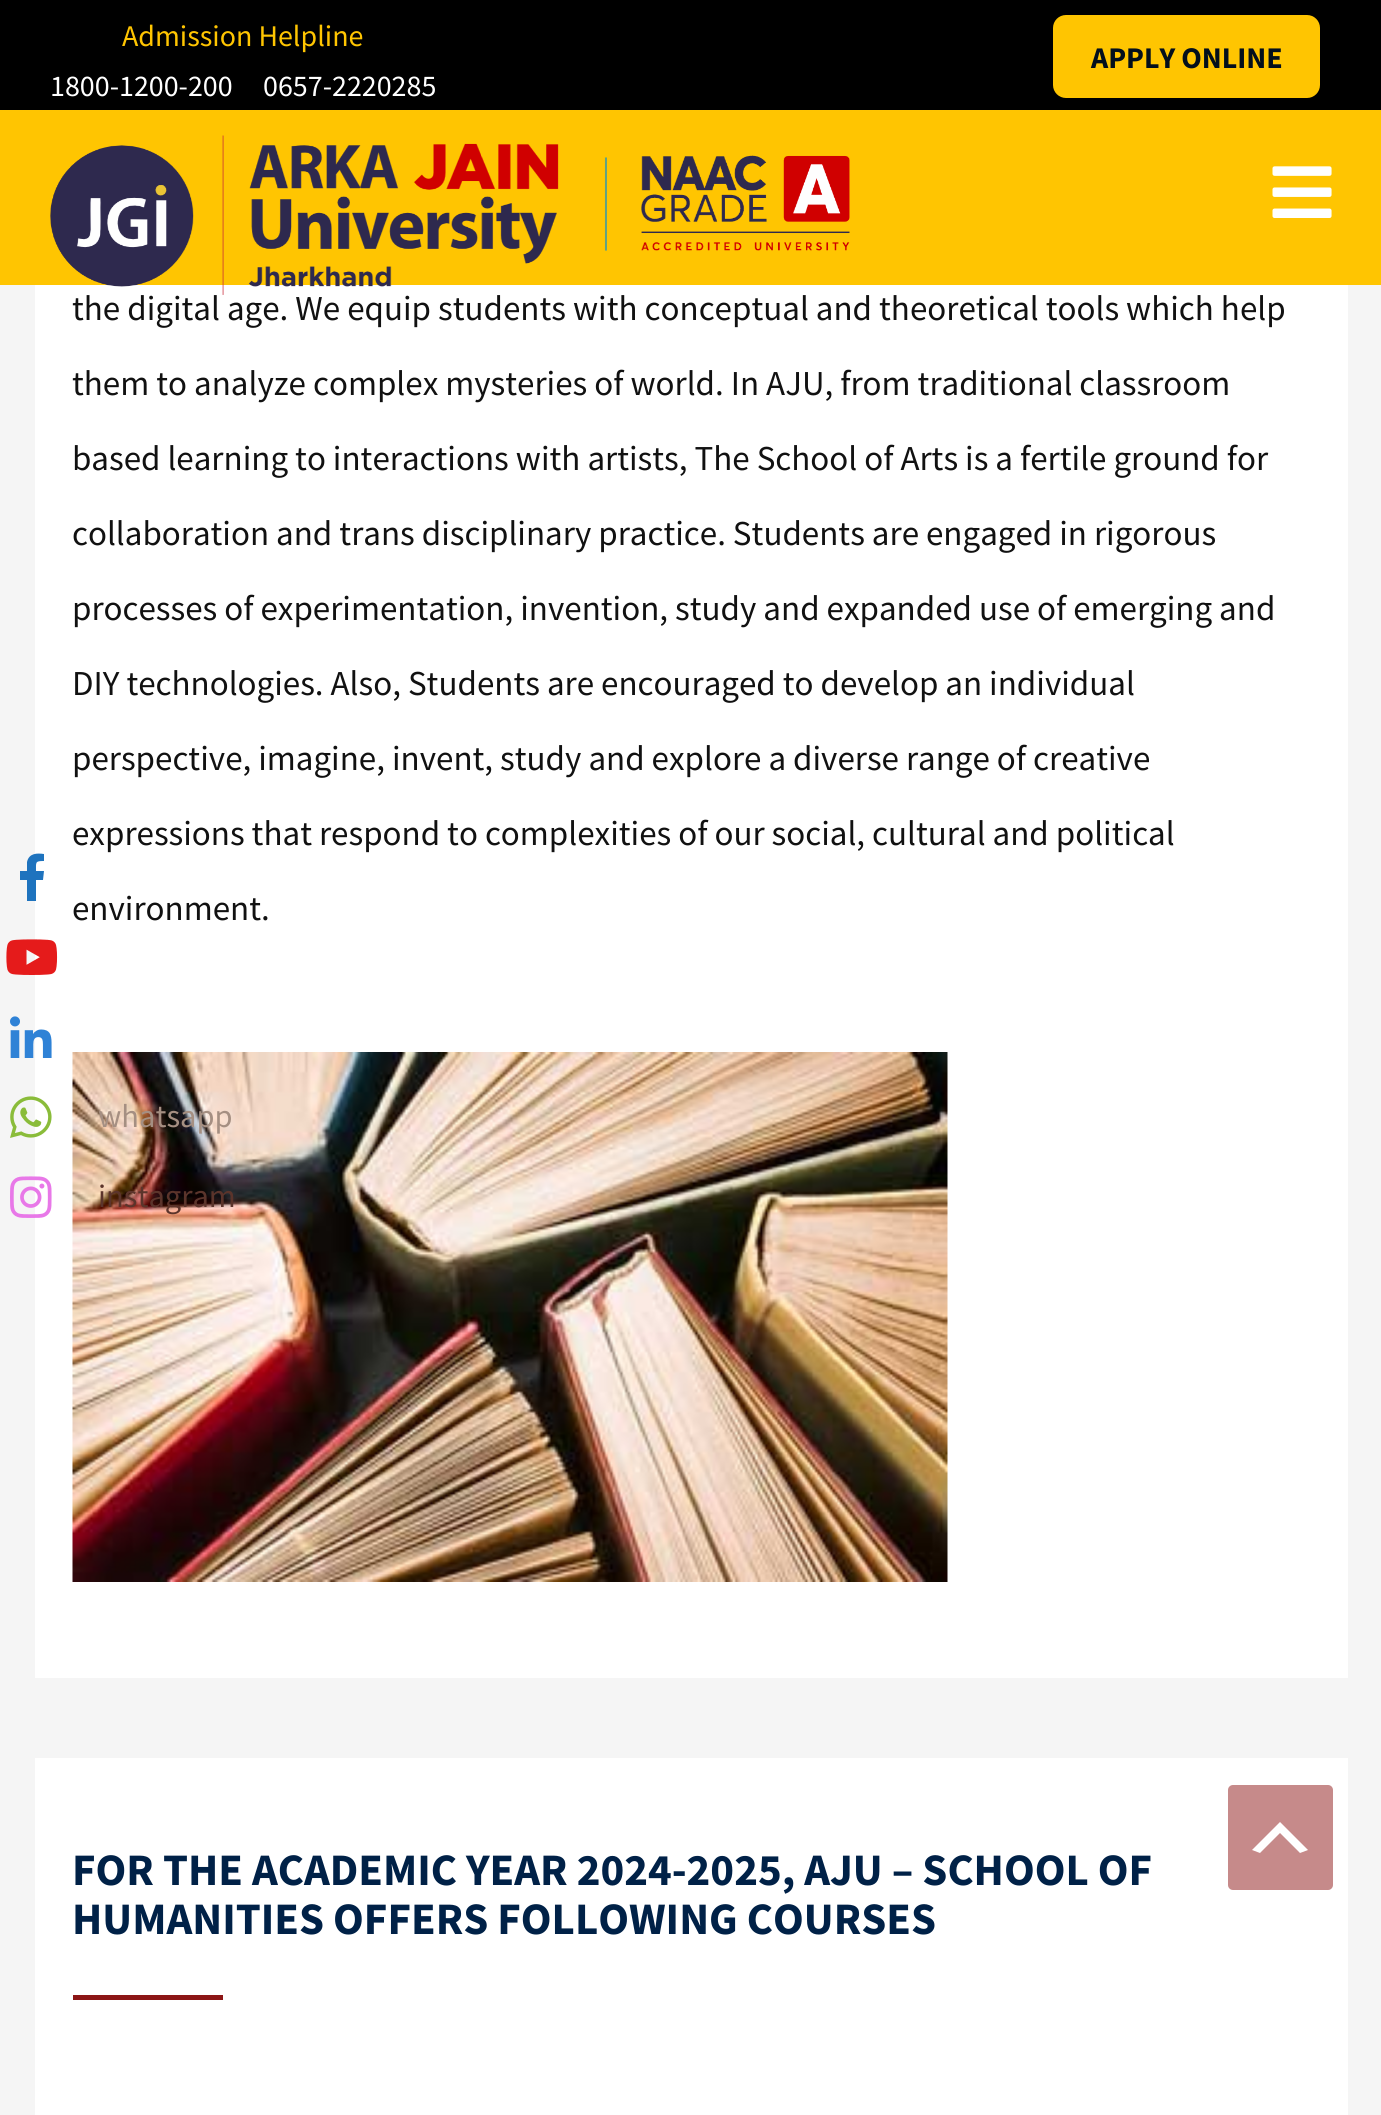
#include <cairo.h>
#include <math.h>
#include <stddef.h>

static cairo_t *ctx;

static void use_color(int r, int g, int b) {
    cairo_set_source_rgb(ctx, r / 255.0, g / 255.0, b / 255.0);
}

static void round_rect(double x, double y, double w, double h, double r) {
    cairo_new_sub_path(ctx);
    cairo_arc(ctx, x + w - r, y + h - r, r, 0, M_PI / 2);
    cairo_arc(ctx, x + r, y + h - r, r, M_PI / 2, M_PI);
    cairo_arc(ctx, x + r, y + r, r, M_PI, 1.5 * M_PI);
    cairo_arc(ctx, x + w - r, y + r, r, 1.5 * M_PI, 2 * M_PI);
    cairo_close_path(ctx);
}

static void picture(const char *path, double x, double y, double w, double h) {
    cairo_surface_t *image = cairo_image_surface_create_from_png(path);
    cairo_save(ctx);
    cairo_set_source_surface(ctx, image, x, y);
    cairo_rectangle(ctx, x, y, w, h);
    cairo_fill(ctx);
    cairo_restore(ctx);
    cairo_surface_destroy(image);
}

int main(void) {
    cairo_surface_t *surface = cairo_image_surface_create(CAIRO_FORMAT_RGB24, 1381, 2115);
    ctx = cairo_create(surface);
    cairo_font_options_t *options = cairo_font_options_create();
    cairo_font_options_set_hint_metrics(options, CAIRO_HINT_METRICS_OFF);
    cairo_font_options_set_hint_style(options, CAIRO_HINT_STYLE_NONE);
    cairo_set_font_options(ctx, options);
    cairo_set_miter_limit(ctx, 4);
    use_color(245, 245, 245);
    cairo_paint(ctx);
    use_color(0, 0, 0);
    cairo_rectangle(ctx, 0, 0, 1381, 110);
    cairo_fill(ctx);
    cairo_select_font_face(ctx, "Source Sans Pro", CAIRO_FONT_SLANT_NORMAL, CAIRO_FONT_WEIGHT_NORMAL);
    cairo_set_font_size(ctx, 30);
    use_color(255, 197, 1);
    cairo_move_to(ctx, 122, 46);
    cairo_show_text(ctx, "Admission Helpline");
    use_color(255, 255, 255);
    cairo_move_to(ctx, 50, 96);
    cairo_show_text(ctx, "1800-1200-200");
    cairo_move_to(ctx, 263, 96);
    cairo_show_text(ctx, "0657-2220285");
    use_color(255, 197, 1);
    round_rect(1053, 15, 267, 83, 13);
    cairo_fill(ctx);
    cairo_select_font_face(ctx, "Source Sans Pro", CAIRO_FONT_SLANT_NORMAL, CAIRO_FONT_WEIGHT_BOLD);
    use_color(3, 15, 28);
    cairo_move_to(ctx, 1091, 68);
    cairo_show_text(ctx, "APPLY ONLINE");
    use_color(255, 197, 1);
    cairo_rectangle(ctx, 0, 110, 1381, 175);
    cairo_fill(ctx);
    use_color(255, 255, 255);
    cairo_rectangle(ctx, 35, 285, 1313, 1393);
    cairo_fill(ctx);
    picture("img1.png", 50, 135, 800, 160);
    picture("img2.png", 1272, 166, 60, 52);
    cairo_select_font_face(ctx, "Source Sans Pro", CAIRO_FONT_SLANT_NORMAL, CAIRO_FONT_WEIGHT_NORMAL);
    cairo_set_font_size(ctx, 35);
    use_color(17, 17, 17);
    cairo_move_to(ctx, 72, 320);
    cairo_show_text(ctx, "the digital age. We equip students with conceptual and theoretical tools which help");
    cairo_move_to(ctx, 72, 395);
    cairo_show_text(ctx, "them to analyze complex mysteries of world. In AJU, from traditional classroom");
    cairo_move_to(ctx, 72, 470);
    cairo_show_text(ctx, "based learning to interactions with artists, The School of Arts is a fertile ground for");
    cairo_move_to(ctx, 72, 545);
    cairo_show_text(ctx, "collaboration and trans disciplinary practice. Students are engaged in rigorous");
    cairo_move_to(ctx, 72, 620);
    cairo_show_text(ctx, "processes of experimentation, invention, study and expanded use of emerging and");
    cairo_move_to(ctx, 72, 695);
    cairo_show_text(ctx, "DIY technologies. Also, Students are encouraged to develop an individual");
    cairo_move_to(ctx, 72, 770);
    cairo_show_text(ctx, "perspective, imagine, invent, study and explore a diverse range of creative");
    cairo_move_to(ctx, 72, 845);
    cairo_show_text(ctx, "expressions that respond to complexities of our social, cultural and political");
    cairo_move_to(ctx, 72, 920);
    cairo_show_text(ctx, "environment.");
    picture("img3.png", 72, 1052, 876, 530);
    use_color(255, 255, 255);
    cairo_rectangle(ctx, 35, 1758, 1313, 357);
    cairo_fill(ctx);
    cairo_select_font_face(ctx, "Source Sans Pro", CAIRO_FONT_SLANT_NORMAL, CAIRO_FONT_WEIGHT_BOLD);
    cairo_set_font_size(ctx, 45);
    use_color(0, 33, 71);
    cairo_move_to(ctx, 72, 1885);
    cairo_show_text(ctx, "FOR THE ACADEMIC YEAR 2024-2025, AJU – SCHOOL OF");
    cairo_move_to(ctx, 72, 1934);
    cairo_show_text(ctx, "HUMANITIES OFFERS FOLLOWING COURSES");
    use_color(140, 21, 21);
    cairo_rectangle(ctx, 73, 1995, 150, 5);
    cairo_fill(ctx);
    use_color(30, 115, 190);
    cairo_new_path(ctx);
    cairo_move_to(ctx, 27, 901);
    cairo_line_to(ctx, 27, 880);
    cairo_line_to(ctx, 20, 880);
    cairo_line_to(ctx, 20, 871);
    cairo_line_to(ctx, 27, 871);
    cairo_line_to(ctx, 27, 862);
    cairo_curve_to(ctx, 29, 853, 37, 853, 44, 854);
    cairo_line_to(ctx, 44, 861);
    cairo_curve_to(ctx, 35, 861, 36, 862, 36, 871);
    cairo_line_to(ctx, 44, 871);
    cairo_line_to(ctx, 43, 880);
    cairo_line_to(ctx, 36, 880);
    cairo_line_to(ctx, 36, 901);
    cairo_close_path(ctx);
    cairo_fill(ctx);
    picture("img4.png", 6, 939, 52, 36);
    picture("img5.png", 10, 1016, 42, 42);
    picture("img6.png", 10, 1096, 42, 42);
    cairo_select_font_face(ctx, "Source Sans Pro", CAIRO_FONT_SLANT_NORMAL, CAIRO_FONT_WEIGHT_NORMAL);
    cairo_set_font_size(ctx, 32.5);
    use_color(165, 143, 130);
    cairo_move_to(ctx, 98, 1127);
    cairo_show_text(ctx, "whatsapp");
    picture("img7.png", 10, 1176, 42, 42);
    use_color(91, 52, 43);
    cairo_move_to(ctx, 98, 1207);
    cairo_show_text(ctx, "instagram");
    use_color(198, 138, 138);
    round_rect(1228, 1785, 105, 105, 5);
    cairo_fill(ctx);
    use_color(255, 255, 255);
    cairo_new_path(ctx);
    cairo_move_to(ctx, 1300, 1853);
    cairo_line_to(ctx, 1280, 1833);
    cairo_line_to(ctx, 1260, 1853);
    cairo_line_to(ctx, 1252, 1850);
    cairo_line_to(ctx, 1280, 1822);
    cairo_line_to(ctx, 1308, 1850);
    cairo_close_path(ctx);
    cairo_fill(ctx);
    cairo_surface_write_to_png(surface, "result.png");
    cairo_font_options_destroy(options);
    cairo_destroy(ctx);
    cairo_surface_destroy(surface);
    return 0;
}
